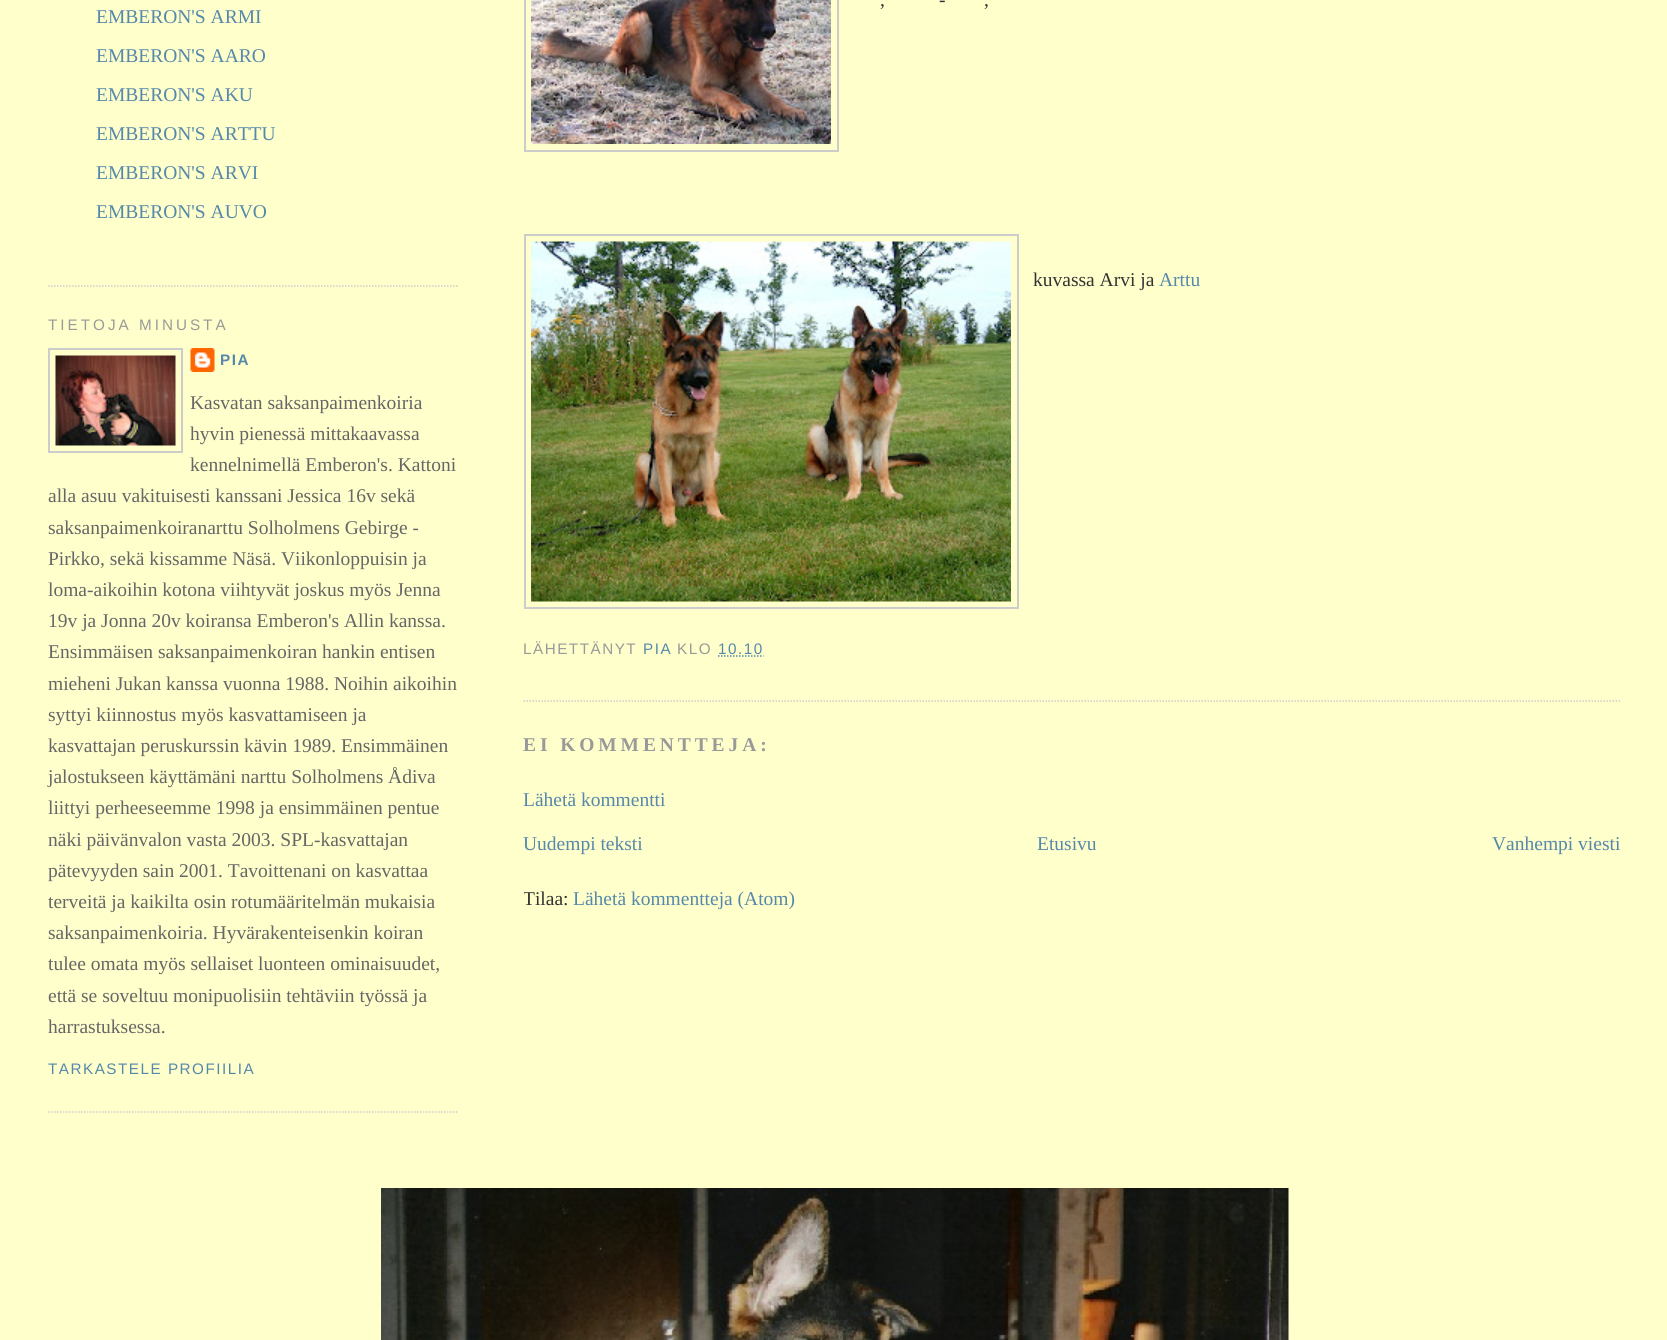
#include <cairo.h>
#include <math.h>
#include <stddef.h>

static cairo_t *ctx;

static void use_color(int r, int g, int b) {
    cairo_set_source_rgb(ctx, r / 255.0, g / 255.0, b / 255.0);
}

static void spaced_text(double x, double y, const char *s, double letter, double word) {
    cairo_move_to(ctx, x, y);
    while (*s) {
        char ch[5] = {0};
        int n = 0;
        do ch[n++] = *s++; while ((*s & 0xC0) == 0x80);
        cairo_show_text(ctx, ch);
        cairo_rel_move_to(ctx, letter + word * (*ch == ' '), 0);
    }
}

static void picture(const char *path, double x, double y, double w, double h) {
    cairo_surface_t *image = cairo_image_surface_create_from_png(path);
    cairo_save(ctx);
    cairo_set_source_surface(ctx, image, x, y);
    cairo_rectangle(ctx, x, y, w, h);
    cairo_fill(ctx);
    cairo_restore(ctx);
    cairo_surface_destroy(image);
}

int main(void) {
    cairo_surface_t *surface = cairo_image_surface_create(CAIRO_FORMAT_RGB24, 1667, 1340);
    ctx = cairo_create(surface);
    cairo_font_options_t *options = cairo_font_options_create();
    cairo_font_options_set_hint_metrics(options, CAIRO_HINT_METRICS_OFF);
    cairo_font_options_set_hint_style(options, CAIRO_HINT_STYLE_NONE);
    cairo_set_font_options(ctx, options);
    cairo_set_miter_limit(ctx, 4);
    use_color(255, 255, 204);
    cairo_paint(ctx);
    cairo_new_path(ctx);
    cairo_move_to(ctx, 48, 286);
    cairo_line_to(ctx, 457.5, 286);
    use_color(204, 204, 204);
    cairo_set_line_width(ctx, 1.5);
    cairo_set_dash(ctx, (double[]){1.5, 1.5}, 2, 0);
    cairo_stroke(ctx);
    cairo_select_font_face(ctx, "Liberation Serif", CAIRO_FONT_SLANT_NORMAL, CAIRO_FONT_WEIGHT_NORMAL);
    cairo_set_font_size(ctx, 19.5);
    use_color(85, 136, 170);
    cairo_move_to(ctx, 96, 23);
    cairo_show_text(ctx, "EMBERON'S ARMI");
    cairo_move_to(ctx, 96, 62);
    cairo_show_text(ctx, "EMBERON'S AARO");
    cairo_move_to(ctx, 96, 101);
    cairo_show_text(ctx, "EMBERON'S AKU");
    cairo_move_to(ctx, 96, 140);
    cairo_show_text(ctx, "EMBERON'S ARTTU");
    cairo_move_to(ctx, 96, 179);
    cairo_show_text(ctx, "EMBERON'S ARVI");
    cairo_move_to(ctx, 96, 218);
    cairo_show_text(ctx, "EMBERON'S AUVO");
    cairo_new_path(ctx);
    cairo_move_to(ctx, 48, 1112);
    cairo_line_to(ctx, 457.5, 1112);
    use_color(204, 204, 204);
    cairo_stroke(ctx);
    cairo_select_font_face(ctx, "Liberation Sans", CAIRO_FONT_SLANT_NORMAL, CAIRO_FONT_WEIGHT_NORMAL);
    cairo_set_font_size(ctx, 15.25);
    use_color(153, 153, 153);
    spaced_text(48, 330, "TIETOJA MINUSTA", 3, 0);
    cairo_rectangle(ctx, 49, 349, 133, 103);
    use_color(204, 204, 204);
    cairo_set_line_width(ctx, 2);
    cairo_set_dash(ctx, NULL, 0, 0);
    cairo_stroke(ctx);
    picture("img1.png", 55, 355, 121, 91);
    picture("img2.png", 190, 348, 25, 24);
    cairo_select_font_face(ctx, "Liberation Sans", CAIRO_FONT_SLANT_NORMAL, CAIRO_FONT_WEIGHT_BOLD);
    use_color(85, 136, 170);
    spaced_text(220, 365, "PIA", 1.5, 0);
    cairo_select_font_face(ctx, "Liberation Serif", CAIRO_FONT_SLANT_NORMAL, CAIRO_FONT_WEIGHT_NORMAL);
    cairo_set_font_size(ctx, 19.5);
    use_color(102, 102, 102);
    cairo_move_to(ctx, 190, 409);
    cairo_show_text(ctx, "Kasvatan saksanpaimenkoiria");
    cairo_move_to(ctx, 190, 440);
    cairo_show_text(ctx, "hyvin pienessä mittakaavassa");
    cairo_move_to(ctx, 190, 471);
    cairo_show_text(ctx, "kennelnimellä Emberon's. Kattoni");
    cairo_move_to(ctx, 48, 502);
    cairo_show_text(ctx, "alla asuu vakituisesti kanssani Jessica 16v sekä");
    cairo_move_to(ctx, 48, 534);
    cairo_show_text(ctx, "saksanpaimenkoiranarttu Solholmens Gebirge -");
    cairo_move_to(ctx, 48, 565);
    cairo_show_text(ctx, "Pirkko, sekä kissamme Näsä. Viikonloppuisin ja");
    cairo_move_to(ctx, 48, 596);
    cairo_show_text(ctx, "loma-aikoihin kotona viihtyvät joskus myös Jenna");
    cairo_move_to(ctx, 48, 627);
    cairo_show_text(ctx, "19v ja Jonna 20v koiransa Emberon's Allin kanssa.");
    cairo_move_to(ctx, 48, 658);
    cairo_show_text(ctx, "Ensimmäisen saksanpaimenkoiran hankin entisen");
    cairo_move_to(ctx, 48, 690);
    cairo_show_text(ctx, "mieheni Jukan kanssa vuonna 1988. Noihin aikoihin");
    cairo_move_to(ctx, 48, 721);
    cairo_show_text(ctx, "syttyi kiinnostus myös kasvattamiseen ja");
    cairo_move_to(ctx, 48, 752);
    cairo_show_text(ctx, "kasvattajan peruskurssin kävin 1989. Ensimmäinen");
    cairo_move_to(ctx, 48, 783);
    cairo_show_text(ctx, "jalostukseen käyttämäni narttu Solholmens Ådiva");
    cairo_move_to(ctx, 48, 814);
    cairo_show_text(ctx, "liittyi perheeseemme 1998 ja ensimmäinen pentue");
    cairo_move_to(ctx, 48, 846);
    cairo_show_text(ctx, "näki päivänvalon vasta 2003. SPL-kasvattajan");
    cairo_move_to(ctx, 48, 877);
    cairo_show_text(ctx, "pätevyyden sain 2001. Tavoittenani on kasvattaa");
    cairo_move_to(ctx, 48, 908);
    cairo_show_text(ctx, "terveitä ja kaikilta osin rotumääritelmän mukaisia");
    cairo_move_to(ctx, 48, 939);
    cairo_show_text(ctx, "saksanpaimenkoiria. Hyvärakenteisenkin koiran");
    cairo_move_to(ctx, 48, 970);
    cairo_show_text(ctx, "tulee omata myös sellaiset luonteen ominaisuudet,");
    cairo_move_to(ctx, 48, 1002);
    cairo_show_text(ctx, "että se soveltuu monipuolisiin tehtäviin työssä ja");
    cairo_move_to(ctx, 48, 1033);
    cairo_show_text(ctx, "harrastuksessa.");
    cairo_select_font_face(ctx, "Liberation Sans", CAIRO_FONT_SLANT_NORMAL, CAIRO_FONT_WEIGHT_NORMAL);
    cairo_set_font_size(ctx, 15.25);
    use_color(85, 136, 170);
    spaced_text(48, 1074, "TARKASTELE PROFIILIA", 1.5, 0);
    cairo_new_path(ctx);
    cairo_move_to(ctx, 523.5, 701);
    cairo_line_to(ctx, 1620, 701);
    use_color(204, 204, 204);
    cairo_set_line_width(ctx, 1.5);
    cairo_set_dash(ctx, (double[]){1.5, 1.5}, 2, 0);
    cairo_stroke(ctx);
    cairo_rectangle(ctx, 525, -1, 313, 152);
    cairo_set_line_width(ctx, 2);
    cairo_set_dash(ctx, NULL, 0, 0);
    cairo_stroke(ctx);
    picture("img3.png", 531, 0, 300, 144);
    cairo_select_font_face(ctx, "Liberation Serif", CAIRO_FONT_SLANT_NORMAL, CAIRO_FONT_WEIGHT_NORMAL);
    cairo_set_font_size(ctx, 19.5);
    use_color(51, 51, 51);
    cairo_move_to(ctx, 939, 6);
    cairo_show_text(ctx, "-");
    cairo_move_to(ctx, 880, 6);
    cairo_show_text(ctx, ",");
    cairo_move_to(ctx, 984, 6);
    cairo_show_text(ctx, ",");
    cairo_rectangle(ctx, 525, 235, 493, 373);
    use_color(204, 204, 204);
    cairo_stroke(ctx);
    picture("img4.png", 531, 241, 480, 361);
    use_color(51, 51, 51);
    cairo_move_to(ctx, 1033, 286);
    cairo_show_text(ctx, "kuvassa Arvi ja");
    use_color(85, 136, 170);
    cairo_move_to(ctx, 1159, 286);
    cairo_show_text(ctx, "Arttu");
    cairo_select_font_face(ctx, "Liberation Sans", CAIRO_FONT_SLANT_NORMAL, CAIRO_FONT_WEIGHT_NORMAL);
    cairo_set_font_size(ctx, 15.25);
    use_color(153, 153, 153);
    spaced_text(523, 654, "LÄHETTÄNYT", 1.5, 0);
    use_color(85, 136, 170);
    spaced_text(643, 654, "PIA", 1.5, 0);
    use_color(153, 153, 153);
    spaced_text(677, 654, "KLO", 1.5, 0);
    use_color(85, 136, 170);
    spaced_text(718, 654, "10.10", 1.5, 0);
    cairo_new_path(ctx);
    cairo_move_to(ctx, 718, 656);
    cairo_line_to(ctx, 763.5, 656);
    cairo_set_line_width(ctx, 1.5);
    cairo_set_dash(ctx, (double[]){1.5, 1.5}, 2, 0);
    cairo_stroke(ctx);
    cairo_select_font_face(ctx, "Liberation Serif", CAIRO_FONT_SLANT_NORMAL, CAIRO_FONT_WEIGHT_BOLD);
    cairo_set_font_size(ctx, 19.5);
    use_color(153, 153, 153);
    spaced_text(523, 751, "EI KOMMENTTEJA:", 3.9, 0);
    cairo_select_font_face(ctx, "Liberation Serif", CAIRO_FONT_SLANT_NORMAL, CAIRO_FONT_WEIGHT_NORMAL);
    use_color(85, 136, 170);
    cairo_move_to(ctx, 523, 806);
    cairo_show_text(ctx, "Lähetä kommentti");
    cairo_move_to(ctx, 523, 850);
    cairo_show_text(ctx, "Uudempi teksti");
    cairo_move_to(ctx, 1037, 850);
    cairo_show_text(ctx, "Etusivu");
    cairo_move_to(ctx, 1492, 850);
    cairo_show_text(ctx, "Vanhempi viesti");
    cairo_save(ctx);
    cairo_rectangle(ctx, 524, 0, 1096, 983);
    cairo_clip(ctx);
    use_color(51, 51, 51);
    cairo_move_to(ctx, 523, 905);
    cairo_show_text(ctx, "Tilaa:");
    cairo_restore(ctx);
    cairo_move_to(ctx, 573, 905);
    cairo_show_text(ctx, "Lähetä kommentteja (Atom)");
    picture("img5.png", 381, 1188, 908, 152);
    cairo_surface_write_to_png(surface, "result.png");
    cairo_font_options_destroy(options);
    cairo_destroy(ctx);
    cairo_surface_destroy(surface);
    return 0;
}
